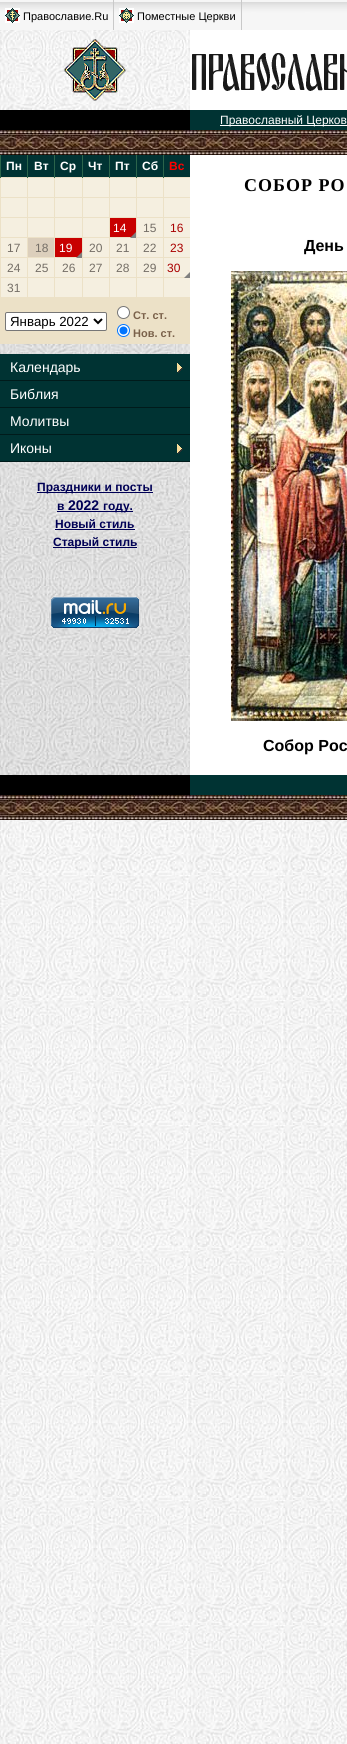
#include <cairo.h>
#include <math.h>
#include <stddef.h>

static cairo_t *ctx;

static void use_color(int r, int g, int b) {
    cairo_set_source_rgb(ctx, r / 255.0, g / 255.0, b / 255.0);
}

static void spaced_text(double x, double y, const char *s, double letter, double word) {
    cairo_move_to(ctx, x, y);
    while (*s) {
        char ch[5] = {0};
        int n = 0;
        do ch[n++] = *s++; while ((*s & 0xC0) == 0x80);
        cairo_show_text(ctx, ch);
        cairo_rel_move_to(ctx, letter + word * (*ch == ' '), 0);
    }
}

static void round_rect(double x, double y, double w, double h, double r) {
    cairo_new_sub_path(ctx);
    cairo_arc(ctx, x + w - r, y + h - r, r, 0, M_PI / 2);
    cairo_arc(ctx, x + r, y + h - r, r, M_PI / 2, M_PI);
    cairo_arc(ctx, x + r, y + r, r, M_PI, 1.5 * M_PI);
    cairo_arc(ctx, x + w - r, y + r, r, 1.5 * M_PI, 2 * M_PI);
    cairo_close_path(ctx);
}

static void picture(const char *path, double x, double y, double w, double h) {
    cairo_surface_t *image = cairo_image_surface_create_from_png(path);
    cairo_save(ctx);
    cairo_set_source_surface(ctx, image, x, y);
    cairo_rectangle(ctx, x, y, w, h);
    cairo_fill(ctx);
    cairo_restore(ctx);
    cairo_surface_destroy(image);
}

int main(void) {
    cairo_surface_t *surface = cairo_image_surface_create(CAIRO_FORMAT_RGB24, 347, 1744);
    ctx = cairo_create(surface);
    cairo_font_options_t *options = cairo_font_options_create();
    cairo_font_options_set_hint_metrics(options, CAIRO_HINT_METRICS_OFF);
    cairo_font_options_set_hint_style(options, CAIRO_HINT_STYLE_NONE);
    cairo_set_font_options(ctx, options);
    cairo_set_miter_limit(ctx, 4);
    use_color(255, 255, 255);
    cairo_paint(ctx);
    picture("img1.png", 0, 30, 347, 1714);
    picture("img2.png", 0, 0, 347, 30);
    use_color(201, 201, 201);
    cairo_rectangle(ctx, 113, 0, 1, 30);
    cairo_fill(ctx);
    picture("img3.png", 5, 8, 15, 15);
    cairo_select_font_face(ctx, "Liberation Sans", CAIRO_FONT_SLANT_NORMAL, CAIRO_FONT_WEIGHT_NORMAL);
    cairo_set_font_size(ctx, 11);
    use_color(0, 0, 0);
    cairo_move_to(ctx, 23, 20);
    cairo_show_text(ctx, "Православие.Ru");
    use_color(201, 201, 201);
    cairo_rectangle(ctx, 241, 0, 1, 30);
    cairo_fill(ctx);
    picture("img4.png", 119, 8, 15, 15);
    use_color(0, 0, 0);
    cairo_move_to(ctx, 137, 20);
    cairo_show_text(ctx, "Поместные Церкви");
    picture("img5.png", 64, 39, 62, 62);
    use_color(255, 255, 255);
    cairo_rectangle(ctx, 190, 30, 157, 80);
    cairo_fill(ctx);
    picture("img6.png", 192, 53, 155, 38);
    use_color(0, 0, 0);
    cairo_rectangle(ctx, 0, 110, 190, 20);
    cairo_fill(ctx);
    use_color(0, 51, 51);
    cairo_rectangle(ctx, 190, 110, 157, 20);
    cairo_fill(ctx);
    use_color(255, 255, 255);
    cairo_rectangle(ctx, 220, 125, 127, 1);
    cairo_fill(ctx);
    cairo_set_font_size(ctx, 12);
    cairo_move_to(ctx, 220, 124);
    cairo_show_text(ctx, "Православный Церков");
    picture("img7.png", 0, 130, 347, 25);
    picture("img8.png", 0, 344, 190, 431);
    use_color(0, 51, 51);
    cairo_rectangle(ctx, 1, 155, 26, 22);
    cairo_fill(ctx);
    use_color(236, 225, 199);
    cairo_rectangle(ctx, 0, 177, 190, 1);
    cairo_fill(ctx);
    use_color(43, 100, 75);
    cairo_rectangle(ctx, 0, 155, 1, 23);
    cairo_fill(ctx);
    cairo_select_font_face(ctx, "Liberation Sans", CAIRO_FONT_SLANT_NORMAL, CAIRO_FONT_WEIGHT_BOLD);
    use_color(255, 255, 255);
    cairo_move_to(ctx, 6, 170);
    cairo_show_text(ctx, "Пн");
    use_color(0, 51, 51);
    cairo_rectangle(ctx, 28, 155, 26, 22);
    cairo_fill(ctx);
    use_color(43, 100, 75);
    cairo_rectangle(ctx, 27, 155, 1, 23);
    cairo_fill(ctx);
    use_color(255, 255, 255);
    cairo_move_to(ctx, 34, 170);
    cairo_show_text(ctx, "Вт");
    use_color(0, 51, 51);
    cairo_rectangle(ctx, 55, 155, 27, 22);
    cairo_fill(ctx);
    use_color(43, 100, 75);
    cairo_rectangle(ctx, 54, 155, 1, 23);
    cairo_fill(ctx);
    use_color(255, 255, 255);
    cairo_move_to(ctx, 60, 170);
    cairo_show_text(ctx, "Ср");
    use_color(0, 51, 51);
    cairo_rectangle(ctx, 83, 155, 26, 22);
    cairo_fill(ctx);
    use_color(43, 100, 75);
    cairo_rectangle(ctx, 82, 155, 1, 23);
    cairo_fill(ctx);
    use_color(255, 255, 255);
    cairo_move_to(ctx, 88, 170);
    cairo_show_text(ctx, "Чт");
    use_color(0, 51, 51);
    cairo_rectangle(ctx, 110, 155, 26, 22);
    cairo_fill(ctx);
    use_color(43, 100, 75);
    cairo_rectangle(ctx, 109, 155, 1, 23);
    cairo_fill(ctx);
    use_color(255, 255, 255);
    cairo_move_to(ctx, 115, 170);
    cairo_show_text(ctx, "Пт");
    use_color(0, 51, 51);
    cairo_rectangle(ctx, 137, 155, 26, 22);
    cairo_fill(ctx);
    use_color(43, 100, 75);
    cairo_rectangle(ctx, 136, 155, 1, 23);
    cairo_fill(ctx);
    use_color(255, 255, 255);
    cairo_move_to(ctx, 142, 170);
    cairo_show_text(ctx, "Сб");
    use_color(0, 51, 51);
    cairo_rectangle(ctx, 164, 155, 26, 22);
    cairo_fill(ctx);
    use_color(43, 100, 75);
    cairo_rectangle(ctx, 163, 155, 1, 23);
    cairo_fill(ctx);
    use_color(255, 0, 0);
    cairo_move_to(ctx, 169, 170);
    cairo_show_text(ctx, "Вс");
    use_color(245, 239, 224);
    cairo_rectangle(ctx, 1, 178, 26, 19);
    cairo_fill(ctx);
    use_color(236, 225, 199);
    cairo_rectangle(ctx, 0, 197, 190, 1);
    cairo_fill(ctx);
    cairo_rectangle(ctx, 0, 178, 1, 20);
    cairo_fill(ctx);
    use_color(245, 239, 224);
    cairo_rectangle(ctx, 28, 178, 26, 19);
    cairo_fill(ctx);
    use_color(236, 225, 199);
    cairo_rectangle(ctx, 27, 178, 1, 20);
    cairo_fill(ctx);
    use_color(245, 239, 224);
    cairo_rectangle(ctx, 55, 178, 27, 19);
    cairo_fill(ctx);
    use_color(236, 225, 199);
    cairo_rectangle(ctx, 54, 178, 1, 20);
    cairo_fill(ctx);
    use_color(245, 239, 224);
    cairo_rectangle(ctx, 83, 178, 26, 19);
    cairo_fill(ctx);
    use_color(236, 225, 199);
    cairo_rectangle(ctx, 82, 178, 1, 20);
    cairo_fill(ctx);
    use_color(245, 239, 224);
    cairo_rectangle(ctx, 110, 178, 26, 19);
    cairo_fill(ctx);
    use_color(236, 225, 199);
    cairo_rectangle(ctx, 109, 178, 1, 20);
    cairo_fill(ctx);
    use_color(245, 239, 224);
    cairo_rectangle(ctx, 137, 178, 26, 19);
    cairo_fill(ctx);
    use_color(236, 225, 199);
    cairo_rectangle(ctx, 136, 178, 1, 20);
    cairo_fill(ctx);
    use_color(245, 239, 224);
    cairo_rectangle(ctx, 164, 178, 26, 19);
    cairo_fill(ctx);
    use_color(236, 225, 199);
    cairo_rectangle(ctx, 163, 178, 1, 20);
    cairo_fill(ctx);
    use_color(245, 239, 224);
    cairo_rectangle(ctx, 1, 198, 26, 19);
    cairo_fill(ctx);
    use_color(236, 225, 199);
    cairo_rectangle(ctx, 0, 217, 190, 1);
    cairo_fill(ctx);
    cairo_rectangle(ctx, 0, 198, 1, 20);
    cairo_fill(ctx);
    use_color(245, 239, 224);
    cairo_rectangle(ctx, 28, 198, 26, 19);
    cairo_fill(ctx);
    use_color(236, 225, 199);
    cairo_rectangle(ctx, 27, 198, 1, 20);
    cairo_fill(ctx);
    use_color(245, 239, 224);
    cairo_rectangle(ctx, 55, 198, 27, 19);
    cairo_fill(ctx);
    use_color(236, 225, 199);
    cairo_rectangle(ctx, 54, 198, 1, 20);
    cairo_fill(ctx);
    use_color(245, 239, 224);
    cairo_rectangle(ctx, 83, 198, 26, 19);
    cairo_fill(ctx);
    use_color(236, 225, 199);
    cairo_rectangle(ctx, 82, 198, 1, 20);
    cairo_fill(ctx);
    use_color(245, 239, 224);
    cairo_rectangle(ctx, 110, 198, 26, 19);
    cairo_fill(ctx);
    use_color(236, 225, 199);
    cairo_rectangle(ctx, 109, 198, 1, 20);
    cairo_fill(ctx);
    use_color(245, 239, 224);
    cairo_rectangle(ctx, 137, 198, 26, 19);
    cairo_fill(ctx);
    use_color(236, 225, 199);
    cairo_rectangle(ctx, 136, 198, 1, 20);
    cairo_fill(ctx);
    use_color(245, 239, 224);
    cairo_rectangle(ctx, 164, 198, 26, 19);
    cairo_fill(ctx);
    use_color(236, 225, 199);
    cairo_rectangle(ctx, 163, 198, 1, 20);
    cairo_fill(ctx);
    use_color(245, 239, 224);
    cairo_rectangle(ctx, 1, 218, 26, 19);
    cairo_fill(ctx);
    use_color(236, 225, 199);
    cairo_rectangle(ctx, 0, 237, 190, 1);
    cairo_fill(ctx);
    cairo_rectangle(ctx, 0, 218, 1, 20);
    cairo_fill(ctx);
    use_color(245, 239, 224);
    cairo_rectangle(ctx, 28, 218, 26, 19);
    cairo_fill(ctx);
    use_color(236, 225, 199);
    cairo_rectangle(ctx, 27, 218, 1, 20);
    cairo_fill(ctx);
    use_color(245, 239, 224);
    cairo_rectangle(ctx, 55, 218, 27, 19);
    cairo_fill(ctx);
    use_color(236, 225, 199);
    cairo_rectangle(ctx, 54, 218, 1, 20);
    cairo_fill(ctx);
    use_color(245, 239, 224);
    cairo_rectangle(ctx, 83, 218, 26, 19);
    cairo_fill(ctx);
    use_color(236, 225, 199);
    cairo_rectangle(ctx, 82, 218, 1, 20);
    cairo_fill(ctx);
    use_color(200, 0, 0);
    cairo_rectangle(ctx, 110, 218, 26, 19);
    cairo_fill(ctx);
    use_color(236, 225, 199);
    cairo_rectangle(ctx, 109, 218, 1, 20);
    cairo_fill(ctx);
    cairo_select_font_face(ctx, "Liberation Sans", CAIRO_FONT_SLANT_NORMAL, CAIRO_FONT_WEIGHT_NORMAL);
    use_color(255, 255, 255);
    cairo_move_to(ctx, 113, 232);
    cairo_show_text(ctx, "14");
    use_color(236, 225, 199);
    cairo_rectangle(ctx, 0, 257, 190, 1);
    cairo_fill(ctx);
    use_color(200, 0, 0);
    cairo_rectangle(ctx, 55, 238, 27, 19);
    cairo_fill(ctx);
    use_color(245, 239, 224);
    cairo_rectangle(ctx, 83, 238, 26, 19);
    cairo_fill(ctx);
    use_color(236, 225, 199);
    cairo_rectangle(ctx, 82, 238, 1, 20);
    cairo_fill(ctx);
    use_color(116, 110, 102);
    cairo_move_to(ctx, 89, 252);
    cairo_show_text(ctx, "20");
    use_color(245, 239, 224);
    cairo_rectangle(ctx, 110, 238, 26, 19);
    cairo_fill(ctx);
    use_color(236, 225, 199);
    cairo_rectangle(ctx, 109, 238, 1, 20);
    cairo_fill(ctx);
    use_color(116, 110, 102);
    cairo_move_to(ctx, 116, 252);
    cairo_show_text(ctx, "21");
    use_color(128, 128, 128);
    cairo_new_path(ctx);
    cairo_move_to(ctx, 136, 238);
    cairo_line_to(ctx, 130, 238);
    cairo_line_to(ctx, 136, 232);
    cairo_close_path(ctx);
    cairo_move_to(ctx, 82, 258);
    cairo_line_to(ctx, 76, 258);
    cairo_line_to(ctx, 82, 252);
    cairo_close_path(ctx);
    cairo_fill(ctx);
    use_color(245, 239, 224);
    cairo_rectangle(ctx, 137, 218, 26, 19);
    cairo_fill(ctx);
    use_color(236, 225, 199);
    cairo_rectangle(ctx, 136, 218, 1, 20);
    cairo_fill(ctx);
    use_color(116, 110, 102);
    cairo_move_to(ctx, 143, 232);
    cairo_show_text(ctx, "15");
    use_color(245, 239, 224);
    cairo_rectangle(ctx, 164, 218, 26, 19);
    cairo_fill(ctx);
    use_color(236, 225, 199);
    cairo_rectangle(ctx, 163, 218, 1, 20);
    cairo_fill(ctx);
    use_color(169, 0, 0);
    cairo_move_to(ctx, 170, 232);
    cairo_show_text(ctx, "16");
    use_color(245, 239, 224);
    cairo_rectangle(ctx, 1, 238, 26, 19);
    cairo_fill(ctx);
    use_color(236, 225, 199);
    cairo_rectangle(ctx, 0, 238, 1, 20);
    cairo_fill(ctx);
    use_color(116, 110, 102);
    cairo_move_to(ctx, 7, 252);
    cairo_show_text(ctx, "17");
    use_color(220, 207, 188);
    cairo_rectangle(ctx, 28, 238, 26, 19);
    cairo_fill(ctx);
    use_color(236, 225, 199);
    cairo_rectangle(ctx, 27, 238, 1, 20);
    cairo_fill(ctx);
    use_color(116, 110, 102);
    cairo_move_to(ctx, 35, 252);
    cairo_show_text(ctx, "18");
    use_color(236, 225, 199);
    cairo_rectangle(ctx, 54, 238, 1, 20);
    cairo_fill(ctx);
    use_color(255, 255, 255);
    cairo_move_to(ctx, 59, 252);
    cairo_show_text(ctx, "19");
    use_color(245, 239, 224);
    cairo_rectangle(ctx, 137, 238, 26, 19);
    cairo_fill(ctx);
    use_color(236, 225, 199);
    cairo_rectangle(ctx, 136, 238, 1, 20);
    cairo_fill(ctx);
    use_color(116, 110, 102);
    cairo_move_to(ctx, 143, 252);
    cairo_show_text(ctx, "22");
    use_color(245, 239, 224);
    cairo_rectangle(ctx, 164, 238, 26, 19);
    cairo_fill(ctx);
    use_color(236, 225, 199);
    cairo_rectangle(ctx, 163, 238, 1, 20);
    cairo_fill(ctx);
    use_color(169, 0, 0);
    cairo_move_to(ctx, 170, 252);
    cairo_show_text(ctx, "23");
    use_color(245, 239, 224);
    cairo_rectangle(ctx, 1, 258, 26, 19);
    cairo_fill(ctx);
    use_color(236, 225, 199);
    cairo_rectangle(ctx, 0, 277, 190, 1);
    cairo_fill(ctx);
    cairo_rectangle(ctx, 0, 258, 1, 20);
    cairo_fill(ctx);
    use_color(116, 110, 102);
    cairo_move_to(ctx, 7, 272);
    cairo_show_text(ctx, "24");
    use_color(245, 239, 224);
    cairo_rectangle(ctx, 28, 258, 26, 19);
    cairo_fill(ctx);
    use_color(236, 225, 199);
    cairo_rectangle(ctx, 27, 258, 1, 20);
    cairo_fill(ctx);
    use_color(116, 110, 102);
    cairo_move_to(ctx, 35, 272);
    cairo_show_text(ctx, "25");
    use_color(245, 239, 224);
    cairo_rectangle(ctx, 55, 258, 27, 19);
    cairo_fill(ctx);
    use_color(236, 225, 199);
    cairo_rectangle(ctx, 54, 258, 1, 20);
    cairo_fill(ctx);
    use_color(116, 110, 102);
    cairo_move_to(ctx, 62, 272);
    cairo_show_text(ctx, "26");
    use_color(245, 239, 224);
    cairo_rectangle(ctx, 83, 258, 26, 19);
    cairo_fill(ctx);
    use_color(236, 225, 199);
    cairo_rectangle(ctx, 82, 258, 1, 20);
    cairo_fill(ctx);
    use_color(116, 110, 102);
    cairo_move_to(ctx, 89, 272);
    cairo_show_text(ctx, "27");
    use_color(245, 239, 224);
    cairo_rectangle(ctx, 110, 258, 26, 19);
    cairo_fill(ctx);
    use_color(236, 225, 199);
    cairo_rectangle(ctx, 109, 258, 1, 20);
    cairo_fill(ctx);
    use_color(116, 110, 102);
    cairo_move_to(ctx, 116, 272);
    cairo_show_text(ctx, "28");
    use_color(245, 239, 224);
    cairo_rectangle(ctx, 137, 258, 26, 19);
    cairo_fill(ctx);
    use_color(236, 225, 199);
    cairo_rectangle(ctx, 136, 258, 1, 20);
    cairo_fill(ctx);
    use_color(116, 110, 102);
    cairo_move_to(ctx, 143, 272);
    cairo_show_text(ctx, "29");
    use_color(245, 239, 224);
    cairo_rectangle(ctx, 164, 258, 26, 19);
    cairo_fill(ctx);
    use_color(236, 225, 199);
    cairo_rectangle(ctx, 163, 258, 1, 20);
    cairo_fill(ctx);
    use_color(169, 0, 0);
    cairo_move_to(ctx, 167, 272);
    cairo_show_text(ctx, "30");
    use_color(128, 128, 128);
    cairo_new_path(ctx);
    cairo_move_to(ctx, 190, 278);
    cairo_line_to(ctx, 184, 278);
    cairo_line_to(ctx, 190, 272);
    cairo_close_path(ctx);
    cairo_fill(ctx);
    use_color(245, 239, 224);
    cairo_rectangle(ctx, 1, 278, 26, 19);
    cairo_fill(ctx);
    use_color(236, 225, 199);
    cairo_rectangle(ctx, 0, 297, 190, 47);
    cairo_fill(ctx);
    cairo_rectangle(ctx, 0, 278, 1, 20);
    cairo_fill(ctx);
    use_color(116, 110, 102);
    cairo_move_to(ctx, 7, 292);
    cairo_show_text(ctx, "31");
    use_color(245, 239, 224);
    cairo_rectangle(ctx, 28, 278, 26, 19);
    cairo_fill(ctx);
    use_color(236, 225, 199);
    cairo_rectangle(ctx, 27, 278, 1, 20);
    cairo_fill(ctx);
    use_color(245, 239, 224);
    cairo_rectangle(ctx, 55, 278, 27, 19);
    cairo_fill(ctx);
    use_color(236, 225, 199);
    cairo_rectangle(ctx, 54, 278, 1, 20);
    cairo_fill(ctx);
    use_color(245, 239, 224);
    cairo_rectangle(ctx, 83, 278, 26, 19);
    cairo_fill(ctx);
    use_color(236, 225, 199);
    cairo_rectangle(ctx, 82, 278, 1, 20);
    cairo_fill(ctx);
    use_color(245, 239, 224);
    cairo_rectangle(ctx, 110, 278, 26, 19);
    cairo_fill(ctx);
    use_color(236, 225, 199);
    cairo_rectangle(ctx, 109, 278, 1, 20);
    cairo_fill(ctx);
    use_color(245, 239, 224);
    cairo_rectangle(ctx, 137, 278, 26, 19);
    cairo_fill(ctx);
    use_color(236, 225, 199);
    cairo_rectangle(ctx, 136, 278, 1, 20);
    cairo_fill(ctx);
    use_color(245, 239, 224);
    cairo_rectangle(ctx, 164, 278, 26, 19);
    cairo_fill(ctx);
    use_color(236, 225, 199);
    cairo_rectangle(ctx, 163, 278, 1, 20);
    cairo_fill(ctx);
    use_color(255, 255, 255);
    round_rect(5.5, 312.5, 101, 18, 1.5);
    cairo_fill_preserve(ctx);
    use_color(118, 118, 118);
    cairo_set_line_width(ctx, 1);
    cairo_stroke(ctx);
    cairo_new_path(ctx);
    cairo_move_to(ctx, 94, 319);
    cairo_line_to(ctx, 98, 323);
    cairo_line_to(ctx, 102, 319);
    use_color(0, 0, 0);
    cairo_set_line_width(ctx, 2);
    cairo_stroke(ctx);
    cairo_set_font_size(ctx, 13.25);
    cairo_move_to(ctx, 10, 326);
    cairo_show_text(ctx, "Январь 2022");
    use_color(255, 255, 255);
    cairo_new_path(ctx);
    cairo_arc(ctx, 123.5, 312.5, 6, 0, 2 * M_PI);
    cairo_fill_preserve(ctx);
    use_color(118, 118, 118);
    cairo_set_line_width(ctx, 1);
    cairo_stroke(ctx);
    cairo_select_font_face(ctx, "Liberation Sans", CAIRO_FONT_SLANT_NORMAL, CAIRO_FONT_WEIGHT_BOLD);
    cairo_set_font_size(ctx, 11);
    use_color(122, 97, 74);
    cairo_move_to(ctx, 133, 319);
    cairo_show_text(ctx, "Ст. ст.");
    use_color(255, 255, 255);
    cairo_new_path(ctx);
    cairo_arc(ctx, 123.5, 330.5, 6, 0, 2 * M_PI);
    cairo_fill_preserve(ctx);
    use_color(0, 117, 255);
    cairo_stroke(ctx);
    cairo_arc(ctx, 123.5, 330.5, 4, 0, 2 * M_PI);
    cairo_fill(ctx);
    use_color(122, 97, 74);
    cairo_move_to(ctx, 133, 337);
    cairo_show_text(ctx, "Нов. ст.");
    use_color(0, 51, 51);
    cairo_rectangle(ctx, 0, 354, 190, 26);
    cairo_fill(ctx);
    picture("img9.png", 177, 363, 6, 10);
    use_color(0, 27, 27);
    cairo_rectangle(ctx, 0, 380, 190, 1);
    cairo_fill(ctx);
    cairo_select_font_face(ctx, "Liberation Sans", CAIRO_FONT_SLANT_NORMAL, CAIRO_FONT_WEIGHT_NORMAL);
    cairo_set_font_size(ctx, 14);
    use_color(255, 255, 255);
    cairo_move_to(ctx, 10, 372);
    cairo_show_text(ctx, "Календарь");
    use_color(0, 51, 51);
    cairo_rectangle(ctx, 0, 381, 190, 26);
    cairo_fill(ctx);
    use_color(0, 27, 27);
    cairo_rectangle(ctx, 0, 407, 190, 1);
    cairo_fill(ctx);
    use_color(255, 255, 255);
    cairo_move_to(ctx, 10, 399);
    cairo_show_text(ctx, "Библия");
    use_color(0, 51, 51);
    cairo_rectangle(ctx, 0, 408, 190, 26);
    cairo_fill(ctx);
    use_color(0, 27, 27);
    cairo_rectangle(ctx, 0, 434, 190, 1);
    cairo_fill(ctx);
    use_color(255, 255, 255);
    cairo_move_to(ctx, 10, 426);
    cairo_show_text(ctx, "Молитвы");
    use_color(0, 51, 51);
    cairo_rectangle(ctx, 0, 435, 190, 26);
    cairo_fill(ctx);
    picture("img9.png", 177, 444, 6, 10);
    use_color(0, 27, 27);
    cairo_rectangle(ctx, 0, 461, 190, 1);
    cairo_fill(ctx);
    use_color(255, 255, 255);
    cairo_move_to(ctx, 10, 453);
    cairo_show_text(ctx, "Иконы");
    use_color(0, 0, 85);
    cairo_rectangle(ctx, 37, 492, 116, 1);
    cairo_fill(ctx);
    cairo_select_font_face(ctx, "Liberation Sans", CAIRO_FONT_SLANT_NORMAL, CAIRO_FONT_WEIGHT_BOLD);
    cairo_set_font_size(ctx, 12);
    cairo_move_to(ctx, 37, 491);
    cairo_show_text(ctx, "Праздники и посты");
    cairo_move_to(ctx, 57, 510);
    cairo_show_text(ctx, "в");
    cairo_set_font_size(ctx, 14);
    cairo_move_to(ctx, 68, 510);
    cairo_show_text(ctx, "2022");
    cairo_rectangle(ctx, 57, 511, 76, 1);
    cairo_fill(ctx);
    cairo_set_font_size(ctx, 12);
    cairo_move_to(ctx, 103, 510);
    cairo_show_text(ctx, "году.");
    cairo_move_to(ctx, 55, 528);
    cairo_show_text(ctx, "Новый стиль");
    cairo_rectangle(ctx, 55, 529, 80, 1);
    cairo_fill(ctx);
    cairo_rectangle(ctx, 53, 547, 84, 1);
    cairo_fill(ctx);
    cairo_move_to(ctx, 53, 546);
    cairo_show_text(ctx, "Старый стиль");
    picture("img10.png", 51, 597, 88, 31);
    use_color(255, 255, 255);
    cairo_rectangle(ctx, 190, 155, 157, 620);
    cairo_fill(ctx);
    cairo_select_font_face(ctx, "Liberation Serif", CAIRO_FONT_SLANT_NORMAL, CAIRO_FONT_WEIGHT_BOLD);
    cairo_set_font_size(ctx, 18);
    use_color(0, 0, 0);
    spaced_text(244, 191, "СОБОР РО", 1, 0);
    cairo_select_font_face(ctx, "Liberation Sans", CAIRO_FONT_SLANT_NORMAL, CAIRO_FONT_WEIGHT_BOLD);
    cairo_set_font_size(ctx, 16);
    cairo_move_to(ctx, 304, 251);
    cairo_show_text(ctx, "День");
    picture("img11.png", 231, 271, 116, 450);
    cairo_move_to(ctx, 263, 751);
    cairo_show_text(ctx, "Собор Рос");
    cairo_rectangle(ctx, 0, 775, 190, 20);
    cairo_fill(ctx);
    use_color(0, 51, 51);
    cairo_rectangle(ctx, 190, 775, 157, 20);
    cairo_fill(ctx);
    picture("img7.png", 0, 795, 347, 25);
    cairo_surface_write_to_png(surface, "result.png");
    cairo_font_options_destroy(options);
    cairo_destroy(ctx);
    cairo_surface_destroy(surface);
    return 0;
}
